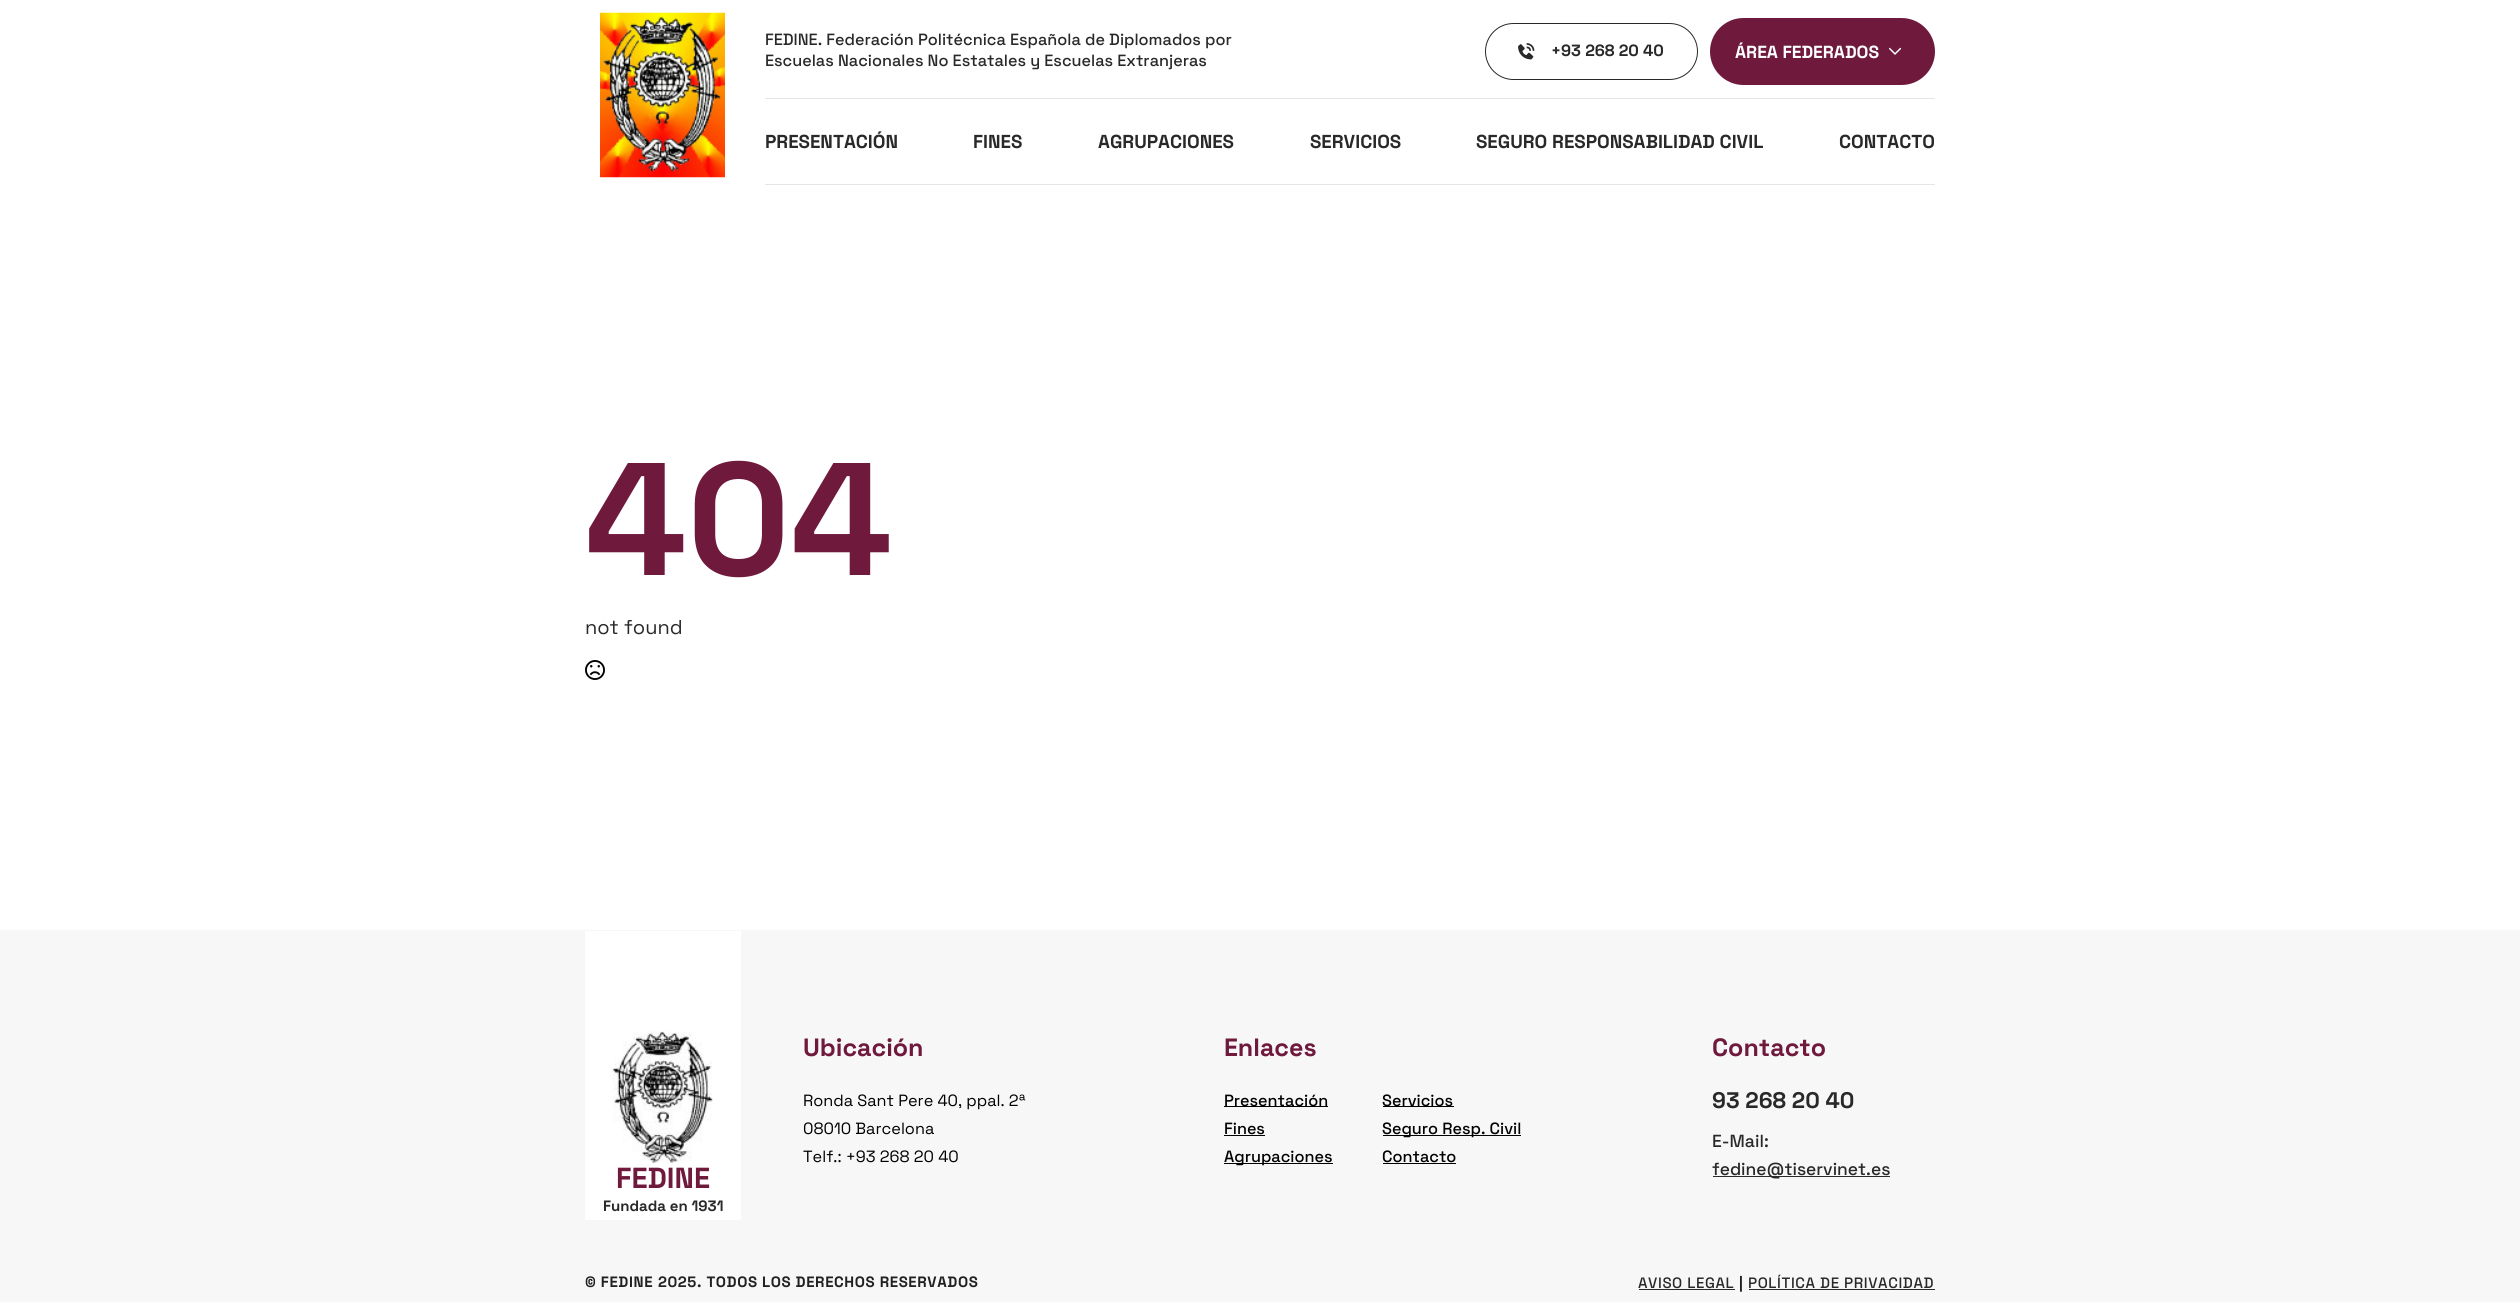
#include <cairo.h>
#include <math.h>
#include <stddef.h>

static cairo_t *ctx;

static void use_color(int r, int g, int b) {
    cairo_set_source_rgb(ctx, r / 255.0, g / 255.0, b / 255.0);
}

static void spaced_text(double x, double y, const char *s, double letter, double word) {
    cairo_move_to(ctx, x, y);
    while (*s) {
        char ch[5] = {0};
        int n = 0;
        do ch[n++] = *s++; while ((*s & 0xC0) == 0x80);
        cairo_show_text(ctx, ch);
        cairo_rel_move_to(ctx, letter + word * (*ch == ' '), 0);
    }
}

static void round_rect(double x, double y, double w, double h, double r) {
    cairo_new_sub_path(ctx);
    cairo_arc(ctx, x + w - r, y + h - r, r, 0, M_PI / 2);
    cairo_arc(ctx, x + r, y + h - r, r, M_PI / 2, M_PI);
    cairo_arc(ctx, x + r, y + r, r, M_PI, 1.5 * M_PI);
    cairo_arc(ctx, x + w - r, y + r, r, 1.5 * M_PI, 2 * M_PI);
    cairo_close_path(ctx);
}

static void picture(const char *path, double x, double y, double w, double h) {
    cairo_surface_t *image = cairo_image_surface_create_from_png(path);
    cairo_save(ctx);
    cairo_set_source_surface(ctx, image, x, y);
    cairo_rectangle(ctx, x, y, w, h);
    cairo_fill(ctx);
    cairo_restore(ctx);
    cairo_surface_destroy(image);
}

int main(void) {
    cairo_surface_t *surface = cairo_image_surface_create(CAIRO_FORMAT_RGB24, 2520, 1302);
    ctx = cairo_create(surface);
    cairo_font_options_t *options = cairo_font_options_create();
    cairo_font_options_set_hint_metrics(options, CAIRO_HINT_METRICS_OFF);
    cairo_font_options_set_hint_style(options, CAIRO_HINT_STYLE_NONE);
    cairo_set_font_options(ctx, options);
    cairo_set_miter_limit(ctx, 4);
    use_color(255, 255, 255);
    cairo_paint(ctx);
    picture("img1.png", 600, 12, 125, 166);
    use_color(229, 229, 229);
    cairo_rectangle(ctx, 765, 98, 1170, 1);
    cairo_fill(ctx);
    cairo_select_font_face(ctx, "Space Grotesk Medium", CAIRO_FONT_SLANT_NORMAL, CAIRO_FONT_WEIGHT_NORMAL);
    cairo_set_font_size(ctx, 16.25);
    use_color(41, 41, 41);
    cairo_move_to(ctx, 765, 45);
    cairo_show_text(ctx, "FEDINE. Federación Politécnica Española de Diplomados por");
    cairo_move_to(ctx, 765, 66);
    cairo_show_text(ctx, "Escuelas Nacionales No Estatales y Escuelas Extranjeras");
    round_rect(1485.5, 23.5, 212, 56, 28);
    cairo_set_line_width(ctx, 1);
    cairo_stroke(ctx);
    picture("img2.png", 1518, 43, 17, 17);
    cairo_select_font_face(ctx, "Space Grotesk", CAIRO_FONT_SLANT_NORMAL, CAIRO_FONT_WEIGHT_BOLD);
    cairo_move_to(ctx, 1551, 56);
    cairo_show_text(ctx, "+93 268 20 40");
    use_color(111, 25, 60);
    round_rect(1710, 18, 225, 67, 33.5);
    cairo_fill(ctx);
    cairo_set_font_size(ctx, 17.5);
    use_color(255, 255, 255);
    cairo_move_to(ctx, 1735, 58);
    cairo_show_text(ctx, "ÁREA FEDERADOS");
    picture("img3.png", 1889, 47, 12, 8);
    use_color(229, 229, 229);
    cairo_rectangle(ctx, 765, 184, 1170, 1);
    cairo_fill(ctx);
    cairo_set_font_size(ctx, 18.75);
    use_color(41, 41, 41);
    cairo_move_to(ctx, 765, 148);
    cairo_show_text(ctx, "PRESENTACIÓN");
    cairo_move_to(ctx, 973, 148);
    cairo_show_text(ctx, "FINES");
    cairo_move_to(ctx, 1098, 148);
    cairo_show_text(ctx, "AGRUPACIONES");
    cairo_move_to(ctx, 1310, 148);
    cairo_show_text(ctx, "SERVICIOS");
    cairo_move_to(ctx, 1476, 148);
    cairo_show_text(ctx, "SEGURO RESPONSABILIDAD CIVIL");
    cairo_move_to(ctx, 1839, 148);
    cairo_show_text(ctx, "CONTACTO");
    cairo_set_font_size(ctx, 160);
    use_color(111, 25, 60);
    cairo_move_to(ctx, 585, 575);
    cairo_show_text(ctx, "404");
    cairo_select_font_face(ctx, "Space Grotesk", CAIRO_FONT_SLANT_NORMAL, CAIRO_FONT_WEIGHT_NORMAL);
    cairo_set_font_size(ctx, 20);
    use_color(41, 41, 41);
    cairo_move_to(ctx, 585, 634);
    cairo_show_text(ctx, "not found");
    picture("img4.png", 585, 660, 20, 20);
    use_color(247, 247, 247);
    cairo_rectangle(ctx, 0, 930, 2520, 372);
    cairo_fill(ctx);
    cairo_select_font_face(ctx, "Space Grotesk", CAIRO_FONT_SLANT_NORMAL, CAIRO_FONT_WEIGHT_BOLD);
    cairo_set_font_size(ctx, 25);
    use_color(111, 25, 60);
    cairo_move_to(ctx, 803, 1056);
    cairo_show_text(ctx, "Ubicación");
    cairo_select_font_face(ctx, "Space Grotesk", CAIRO_FONT_SLANT_NORMAL, CAIRO_FONT_WEIGHT_NORMAL);
    cairo_set_font_size(ctx, 16.25);
    use_color(0, 0, 0);
    cairo_move_to(ctx, 803, 1106);
    cairo_show_text(ctx, "Ronda Sant Pere 40, ppal. 2ª");
    cairo_move_to(ctx, 803, 1134);
    cairo_show_text(ctx, "08010 Barcelona");
    cairo_move_to(ctx, 803, 1162);
    cairo_show_text(ctx, "Telf.: +93 268 20 40");
    cairo_select_font_face(ctx, "Space Grotesk", CAIRO_FONT_SLANT_NORMAL, CAIRO_FONT_WEIGHT_BOLD);
    cairo_set_font_size(ctx, 25);
    use_color(111, 25, 60);
    cairo_move_to(ctx, 1224, 1056);
    cairo_show_text(ctx, "Enlaces");
    use_color(0, 0, 0);
    cairo_rectangle(ctx, 1224, 1106, 104, 1);
    cairo_fill(ctx);
    cairo_select_font_face(ctx, "Space Grotesk Medium", CAIRO_FONT_SLANT_NORMAL, CAIRO_FONT_WEIGHT_NORMAL);
    cairo_set_font_size(ctx, 16.25);
    cairo_move_to(ctx, 1224, 1106);
    cairo_show_text(ctx, "Presentación");
    cairo_move_to(ctx, 1224, 1134);
    cairo_show_text(ctx, "Fines");
    cairo_rectangle(ctx, 1224, 1135, 41, 1);
    cairo_fill(ctx);
    cairo_rectangle(ctx, 1224, 1163, 109, 1);
    cairo_fill(ctx);
    cairo_move_to(ctx, 1224, 1162);
    cairo_show_text(ctx, "Agrupaciones");
    cairo_rectangle(ctx, 1383, 1106, 71, 1);
    cairo_fill(ctx);
    cairo_move_to(ctx, 1382, 1106);
    cairo_show_text(ctx, "Servicios");
    cairo_rectangle(ctx, 1383, 1135, 138, 1);
    cairo_fill(ctx);
    cairo_move_to(ctx, 1382, 1134);
    cairo_show_text(ctx, "Seguro Resp. Civil");
    cairo_move_to(ctx, 1382, 1162);
    cairo_show_text(ctx, "Contacto");
    cairo_rectangle(ctx, 1383, 1163, 73, 1);
    cairo_fill(ctx);
    cairo_select_font_face(ctx, "Space Grotesk", CAIRO_FONT_SLANT_NORMAL, CAIRO_FONT_WEIGHT_BOLD);
    cairo_set_font_size(ctx, 25);
    use_color(111, 25, 60);
    cairo_move_to(ctx, 1712, 1056);
    cairo_show_text(ctx, "Contacto");
    cairo_set_font_size(ctx, 22.5);
    use_color(41, 41, 41);
    cairo_move_to(ctx, 1712, 1108);
    cairo_show_text(ctx, "93 268 20 40");
    cairo_select_font_face(ctx, "Space Grotesk Medium", CAIRO_FONT_SLANT_NORMAL, CAIRO_FONT_WEIGHT_NORMAL);
    cairo_set_font_size(ctx, 17.5);
    cairo_move_to(ctx, 1712, 1147);
    cairo_show_text(ctx, "E-Mail:");
    cairo_rectangle(ctx, 1713, 1176, 177, 1);
    cairo_fill(ctx);
    cairo_move_to(ctx, 1712, 1175);
    cairo_show_text(ctx, "fedine@tiservinet.es");
    use_color(255, 255, 255);
    cairo_rectangle(ctx, 585, 931, 156, 289);
    cairo_fill(ctx);
    picture("img5.png", 612, 1031, 101, 133);
    cairo_select_font_face(ctx, "Space Grotesk", CAIRO_FONT_SLANT_NORMAL, CAIRO_FONT_WEIGHT_BOLD);
    cairo_set_font_size(ctx, 29);
    use_color(111, 25, 60);
    cairo_move_to(ctx, 616, 1188);
    cairo_show_text(ctx, "FEDINE");
    cairo_set_font_size(ctx, 15);
    use_color(41, 41, 41);
    cairo_move_to(ctx, 603, 1211);
    cairo_show_text(ctx, "Fundada en 1931");
    use_color(33, 33, 33);
    spaced_text(585, 1287, "© FEDINE", 0.6, 0);
    spaced_text(658, 1287, "2025. TODOS LOS DERECHOS RESERVADOS", 0.6, 0);
    cairo_select_font_face(ctx, "Space Grotesk Medium", CAIRO_FONT_SLANT_NORMAL, CAIRO_FONT_WEIGHT_NORMAL);
    use_color(41, 41, 41);
    spaced_text(1638, 1288, "AVISO LEGAL", 0.6, 0);
    cairo_rectangle(ctx, 1639, 1289, 96, 1);
    cairo_fill(ctx);
    cairo_select_font_face(ctx, "Space Grotesk", CAIRO_FONT_SLANT_NORMAL, CAIRO_FONT_WEIGHT_BOLD);
    use_color(33, 33, 33);
    spaced_text(1739, 1288, "|", 0.6, 0);
    cairo_select_font_face(ctx, "Space Grotesk Medium", CAIRO_FONT_SLANT_NORMAL, CAIRO_FONT_WEIGHT_NORMAL);
    use_color(41, 41, 41);
    spaced_text(1748, 1288, "POLÍTICA DE PRIVACIDAD", 0.6, 0);
    cairo_rectangle(ctx, 1749, 1289, 186, 1);
    cairo_fill(ctx);
    cairo_surface_write_to_png(surface, "result.png");
    cairo_font_options_destroy(options);
    cairo_destroy(ctx);
    cairo_surface_destroy(surface);
    return 0;
}
